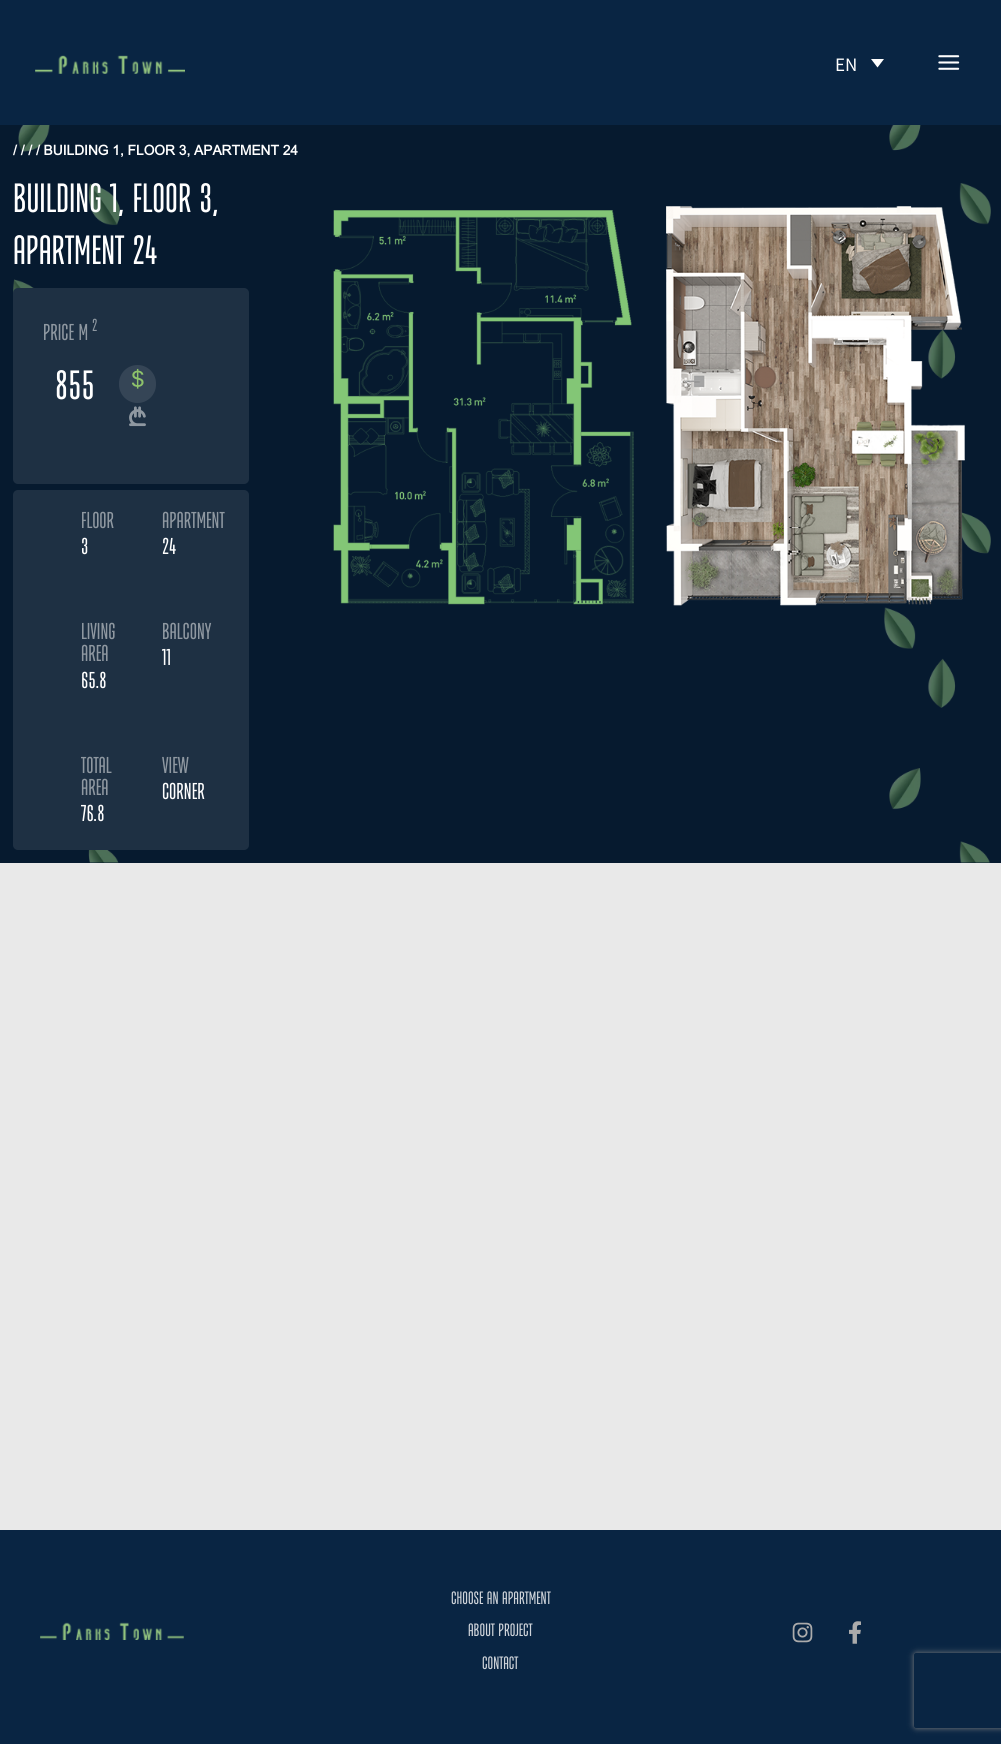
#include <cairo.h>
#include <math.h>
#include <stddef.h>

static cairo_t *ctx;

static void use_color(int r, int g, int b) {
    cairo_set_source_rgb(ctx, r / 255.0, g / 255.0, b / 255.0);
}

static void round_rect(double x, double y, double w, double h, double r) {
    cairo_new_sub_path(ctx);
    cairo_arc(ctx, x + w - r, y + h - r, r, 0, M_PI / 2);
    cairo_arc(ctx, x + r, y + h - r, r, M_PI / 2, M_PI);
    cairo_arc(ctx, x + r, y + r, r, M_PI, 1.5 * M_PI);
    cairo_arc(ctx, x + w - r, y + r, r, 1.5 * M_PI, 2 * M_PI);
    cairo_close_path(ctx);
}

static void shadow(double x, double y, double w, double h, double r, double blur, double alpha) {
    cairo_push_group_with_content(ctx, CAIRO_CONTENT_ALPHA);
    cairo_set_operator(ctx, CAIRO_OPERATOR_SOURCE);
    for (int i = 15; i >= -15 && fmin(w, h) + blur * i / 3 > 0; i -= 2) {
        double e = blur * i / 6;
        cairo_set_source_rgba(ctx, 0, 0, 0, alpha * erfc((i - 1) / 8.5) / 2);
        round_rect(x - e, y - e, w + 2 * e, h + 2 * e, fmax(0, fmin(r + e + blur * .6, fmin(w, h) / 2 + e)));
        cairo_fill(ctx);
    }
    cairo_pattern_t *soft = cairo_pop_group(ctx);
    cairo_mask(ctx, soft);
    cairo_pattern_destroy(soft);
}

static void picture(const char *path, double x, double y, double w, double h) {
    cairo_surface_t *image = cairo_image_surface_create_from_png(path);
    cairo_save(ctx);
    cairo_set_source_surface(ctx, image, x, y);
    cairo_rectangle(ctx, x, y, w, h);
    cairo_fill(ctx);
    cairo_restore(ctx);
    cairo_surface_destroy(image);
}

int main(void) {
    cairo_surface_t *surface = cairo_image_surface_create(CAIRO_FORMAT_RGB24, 1001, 1744);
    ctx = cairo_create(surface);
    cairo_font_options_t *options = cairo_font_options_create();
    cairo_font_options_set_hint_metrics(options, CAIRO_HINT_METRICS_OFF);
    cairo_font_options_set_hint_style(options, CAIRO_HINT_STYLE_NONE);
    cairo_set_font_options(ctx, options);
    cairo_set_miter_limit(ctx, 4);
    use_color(233, 233, 233);
    cairo_paint(ctx);
    use_color(9, 37, 67);
    cairo_rectangle(ctx, 0, 0, 1001, 125);
    cairo_fill(ctx);
    picture("img1.png", 35, 55, 150, 19);
    cairo_select_font_face(ctx, "Source Sans Pro", CAIRO_FONT_SLANT_NORMAL, CAIRO_FONT_WEIGHT_NORMAL);
    cairo_set_font_size(ctx, 19);
    use_color(255, 255, 255);
    cairo_move_to(ctx, 835, 71);
    cairo_show_text(ctx, "EN");
    cairo_new_path(ctx);
    cairo_move_to(ctx, 871, 59);
    cairo_line_to(ctx, 884, 59);
    cairo_line_to(ctx, 877.5, 67.5);
    cairo_close_path(ctx);
    cairo_fill(ctx);
    picture("img2.png", 938, 55, 22, 15);
    use_color(6, 26, 47);
    cairo_rectangle(ctx, 0, 125, 1001, 738);
    cairo_fill(ctx);
    picture("img3.png", 13, 125, 978, 738);
    cairo_select_font_face(ctx, "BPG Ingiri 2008", CAIRO_FONT_SLANT_NORMAL, CAIRO_FONT_WEIGHT_BOLD);
    cairo_set_font_size(ctx, 13.75);
    use_color(255, 255, 255);
    cairo_move_to(ctx, 13, 155);
    cairo_show_text(ctx, "/ / / / BUILDING 1, FLOOR 3, APARTMENT 24");
    cairo_select_font_face(ctx, "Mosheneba", CAIRO_FONT_SLANT_NORMAL, CAIRO_FONT_WEIGHT_NORMAL);
    cairo_set_font_size(ctx, 40);
    cairo_move_to(ctx, 13, 212);
    cairo_show_text(ctx, "Building 1, Floor 3,");
    cairo_move_to(ctx, 13, 264);
    cairo_show_text(ctx, "Apartment 24");
    use_color(30, 48, 67);
    round_rect(13, 288, 236, 196, 5);
    cairo_fill(ctx);
    cairo_set_font_size(ctx, 22.5);
    use_color(143, 152, 161);
    cairo_move_to(ctx, 43, 340);
    cairo_show_text(ctx, "price m");
    cairo_set_font_size(ctx, 17);
    cairo_move_to(ctx, 92, 331);
    cairo_show_text(ctx, "2");
    cairo_set_font_size(ctx, 40);
    use_color(255, 255, 255);
    cairo_move_to(ctx, 55, 399);
    cairo_show_text(ctx, "855");
    use_color(53, 69, 86);
    round_rect(119, 365, 37, 38, 18.5);
    cairo_fill(ctx);
    picture("img4.png", 132, 368, 12, 21);
    picture("img5.png", 129, 406, 17, 21);
    use_color(30, 48, 67);
    round_rect(13, 490, 236, 360, 5);
    cairo_fill(ctx);
    cairo_set_font_size(ctx, 22.5);
    use_color(143, 152, 161);
    cairo_move_to(ctx, 81, 528);
    cairo_show_text(ctx, "FLOOR");
    use_color(255, 255, 255);
    cairo_move_to(ctx, 81, 554);
    cairo_show_text(ctx, "3");
    use_color(143, 152, 161);
    cairo_move_to(ctx, 162, 528);
    cairo_show_text(ctx, "APARTMENT");
    use_color(255, 255, 255);
    cairo_move_to(ctx, 162, 554);
    cairo_show_text(ctx, "24");
    use_color(143, 152, 161);
    cairo_move_to(ctx, 81, 639);
    cairo_show_text(ctx, "LIVING");
    cairo_move_to(ctx, 81, 661);
    cairo_show_text(ctx, "AREA");
    use_color(255, 255, 255);
    cairo_move_to(ctx, 81, 688);
    cairo_show_text(ctx, "65.8");
    use_color(143, 152, 161);
    cairo_move_to(ctx, 162, 639);
    cairo_show_text(ctx, "BALCONY");
    use_color(255, 255, 255);
    cairo_move_to(ctx, 162, 665);
    cairo_show_text(ctx, "11");
    use_color(143, 152, 161);
    cairo_move_to(ctx, 81, 773);
    cairo_show_text(ctx, "TOTAL");
    cairo_move_to(ctx, 81, 795);
    cairo_show_text(ctx, "AREA");
    use_color(255, 255, 255);
    cairo_move_to(ctx, 81, 821);
    cairo_show_text(ctx, "76.8");
    use_color(143, 152, 161);
    cairo_move_to(ctx, 162, 773);
    cairo_show_text(ctx, "VIEW");
    use_color(255, 255, 255);
    cairo_move_to(ctx, 162, 799);
    cairo_show_text(ctx, "CORNER");
    picture("img6.png", 333, 210, 301, 395);
    picture("img7.png", 666, 206, 299, 400);
    use_color(9, 37, 67);
    cairo_rectangle(ctx, 0, 1530, 1001, 214);
    cairo_fill(ctx);
    picture("img8.png", 40, 1622, 144, 18);
    cairo_set_font_size(ctx, 17.5);
    use_color(206, 211, 217);
    cairo_move_to(ctx, 451, 1604);
    cairo_show_text(ctx, "CHOOSE AN APARTMENT");
    cairo_move_to(ctx, 468, 1636);
    cairo_show_text(ctx, "ABOUT PROJECT");
    cairo_move_to(ctx, 482, 1669);
    cairo_show_text(ctx, "CONTACT");
    picture("img9.png", 792, 1622, 21, 21);
    picture("img10.png", 849, 1621, 12, 23);
    cairo_save(ctx);
    cairo_set_fill_rule(ctx, CAIRO_FILL_RULE_EVEN_ODD);
    cairo_new_path(ctx);
    cairo_move_to(ctx, 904, 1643);
    cairo_line_to(ctx, 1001, 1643);
    cairo_line_to(ctx, 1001, 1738);
    cairo_line_to(ctx, 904, 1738);
    cairo_close_path(ctx);
    cairo_move_to(ctx, 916.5, 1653);
    cairo_line_to(ctx, 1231.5, 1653);
    cairo_curve_to(ctx, 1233, 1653, 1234, 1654, 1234, 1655.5);
    cairo_line_to(ctx, 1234, 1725.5);
    cairo_curve_to(ctx, 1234, 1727, 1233, 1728, 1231.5, 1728);
    cairo_line_to(ctx, 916.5, 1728);
    cairo_curve_to(ctx, 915, 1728, 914, 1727, 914, 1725.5);
    cairo_line_to(ctx, 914, 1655.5);
    cairo_curve_to(ctx, 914, 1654, 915, 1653, 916.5, 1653);
    cairo_close_path(ctx);
    cairo_clip(ctx);
    use_color(128, 128, 128);
    shadow(914, 1653, 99, 75, 2.5, 3, 1);
    cairo_restore(ctx);
    cairo_surface_write_to_png(surface, "result.png");
    cairo_font_options_destroy(options);
    cairo_destroy(ctx);
    cairo_surface_destroy(surface);
    return 0;
}
